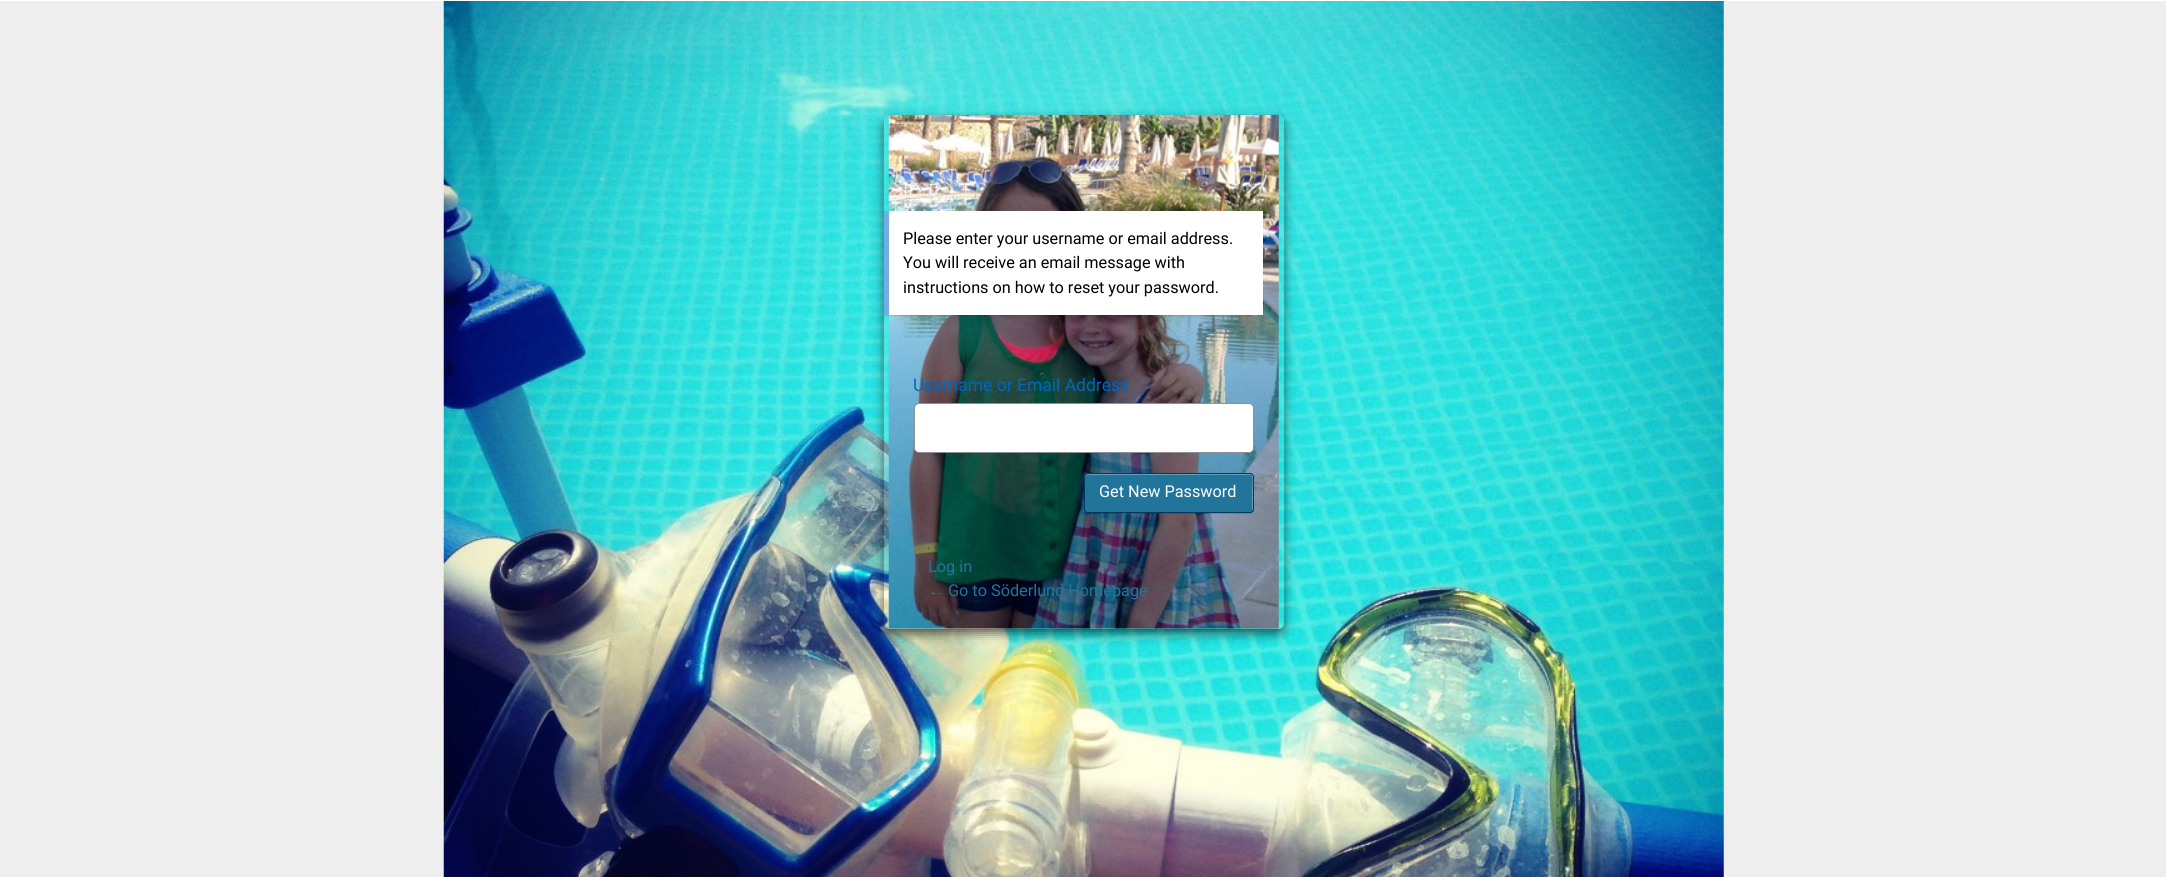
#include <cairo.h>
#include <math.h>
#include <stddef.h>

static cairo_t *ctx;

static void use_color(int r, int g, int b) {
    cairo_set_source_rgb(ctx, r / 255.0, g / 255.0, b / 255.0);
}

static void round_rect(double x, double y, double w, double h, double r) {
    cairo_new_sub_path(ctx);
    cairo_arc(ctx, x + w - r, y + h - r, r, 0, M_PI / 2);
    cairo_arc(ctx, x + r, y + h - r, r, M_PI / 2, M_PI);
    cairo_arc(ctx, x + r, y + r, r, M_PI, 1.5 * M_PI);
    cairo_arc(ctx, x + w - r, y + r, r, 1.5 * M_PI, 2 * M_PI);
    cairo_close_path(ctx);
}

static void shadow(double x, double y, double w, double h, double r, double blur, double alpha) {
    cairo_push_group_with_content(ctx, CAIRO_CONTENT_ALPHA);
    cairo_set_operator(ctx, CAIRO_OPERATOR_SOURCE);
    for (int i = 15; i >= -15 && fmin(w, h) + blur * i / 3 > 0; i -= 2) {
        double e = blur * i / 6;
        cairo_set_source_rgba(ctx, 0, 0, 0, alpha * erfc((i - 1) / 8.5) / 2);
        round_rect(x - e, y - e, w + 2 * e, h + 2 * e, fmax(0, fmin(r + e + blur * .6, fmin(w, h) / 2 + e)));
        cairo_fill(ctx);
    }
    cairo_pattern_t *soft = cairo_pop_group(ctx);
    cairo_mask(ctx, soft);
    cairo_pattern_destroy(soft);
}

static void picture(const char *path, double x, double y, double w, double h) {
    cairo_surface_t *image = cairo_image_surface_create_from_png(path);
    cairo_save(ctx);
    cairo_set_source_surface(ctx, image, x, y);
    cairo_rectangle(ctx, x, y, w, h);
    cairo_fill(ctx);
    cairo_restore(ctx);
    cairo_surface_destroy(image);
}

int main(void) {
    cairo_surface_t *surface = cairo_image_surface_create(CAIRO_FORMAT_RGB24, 2166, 877);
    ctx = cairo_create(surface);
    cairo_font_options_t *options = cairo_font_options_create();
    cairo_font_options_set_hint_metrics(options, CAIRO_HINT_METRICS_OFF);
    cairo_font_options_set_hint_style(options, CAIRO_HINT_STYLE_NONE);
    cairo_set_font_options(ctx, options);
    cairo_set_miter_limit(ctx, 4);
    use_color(238, 238, 238);
    cairo_paint(ctx);
    picture("img1.png", 443, 1, 1281, 876);
    use_color(255, 255, 255);
    cairo_rectangle(ctx, 0, 0, 2166, 1);
    cairo_fill(ctx);
    cairo_save(ctx);
    cairo_set_fill_rule(ctx, CAIRO_FILL_RULE_EVEN_ODD);
    cairo_new_path(ctx);
    cairo_move_to(ctx, 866, 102);
    cairo_line_to(ctx, 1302, 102);
    cairo_line_to(ctx, 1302, 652);
    cairo_line_to(ctx, 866, 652);
    cairo_close_path(ctx);
    cairo_move_to(ctx, 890, 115);
    cairo_line_to(ctx, 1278, 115);
    cairo_curve_to(ctx, 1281.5, 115, 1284, 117.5, 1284, 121);
    cairo_line_to(ctx, 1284, 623);
    cairo_curve_to(ctx, 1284, 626.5, 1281.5, 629, 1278, 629);
    cairo_line_to(ctx, 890, 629);
    cairo_curve_to(ctx, 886.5, 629, 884, 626.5, 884, 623);
    cairo_line_to(ctx, 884, 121);
    cairo_curve_to(ctx, 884, 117.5, 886.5, 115, 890, 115);
    cairo_close_path(ctx);
    cairo_clip(ctx);
    use_color(0, 0, 0);
    shadow(885, 121, 398, 512, 5, 6, 0.7);
    cairo_restore(ctx);
    picture("img2.png", 888, 115, 391, 514);
    use_color(0, 0, 0);
    shadow(884, 213, 379, 103, 0, 0.5, 0.1);
    use_color(255, 255, 255);
    cairo_rectangle(ctx, 889, 211, 374, 104);
    cairo_fill(ctx);
    use_color(114, 174, 230);
    cairo_rectangle(ctx, 884, 211, 5, 104);
    cairo_fill(ctx);
    cairo_select_font_face(ctx, "Roboto", CAIRO_FONT_SLANT_NORMAL, CAIRO_FONT_WEIGHT_NORMAL);
    cairo_set_font_size(ctx, 16.25);
    use_color(0, 0, 0);
    cairo_move_to(ctx, 903, 244);
    cairo_show_text(ctx, "Please enter your username or email address.");
    cairo_move_to(ctx, 903, 268);
    cairo_show_text(ctx, "You will receive an email message with");
    cairo_move_to(ctx, 903, 293);
    cairo_show_text(ctx, "instructions on how to reset your password.");
    cairo_set_font_size(ctx, 17.5);
    use_color(0, 102, 191);
    cairo_move_to(ctx, 913, 391);
    cairo_show_text(ctx, "Username or Email Address");
    use_color(255, 255, 255);
    round_rect(914.5, 403.5, 339, 49, 4.5);
    cairo_fill_preserve(ctx);
    use_color(140, 143, 148);
    cairo_set_line_width(ctx, 1);
    cairo_stroke(ctx);
    cairo_set_source_rgba(ctx, 0, 0, 0, 0.15);
    cairo_new_path(ctx);
    cairo_move_to(ctx, 1084, 510);
    cairo_curve_to(ctx, 1084, 512, 1086, 514, 1088, 514);
    cairo_line_to(ctx, 1250, 514);
    cairo_curve_to(ctx, 1252, 514, 1254, 512, 1254, 510);
    cairo_line_to(ctx, 1254, 477);
    cairo_line_to(ctx, 1254, 509);
    cairo_curve_to(ctx, 1254, 511, 1252, 512, 1250, 512);
    cairo_line_to(ctx, 1088, 512);
    cairo_curve_to(ctx, 1086, 512, 1085, 512, 1084, 510);
    cairo_close_path(ctx);
    cairo_fill(ctx);
    use_color(33, 117, 155);
    round_rect(1084, 473, 170, 40, 4);
    cairo_fill(ctx);
    use_color(100, 158, 185);
    cairo_new_path(ctx);
    cairo_move_to(ctx, 1088, 475);
    cairo_line_to(ctx, 1250, 475);
    cairo_curve_to(ctx, 1254, 475, 1252, 487, 1252, 489);
    cairo_line_to(ctx, 1252, 511);
    cairo_curve_to(ctx, 1253, 510, 1253, 509, 1253, 508);
    cairo_line_to(ctx, 1253, 476);
    cairo_curve_to(ctx, 1253, 475, 1252, 474, 1250, 474);
    cairo_line_to(ctx, 1088, 474);
    cairo_curve_to(ctx, 1086, 474, 1085, 475, 1085, 476);
    cairo_line_to(ctx, 1085, 478);
    cairo_curve_to(ctx, 1085, 476, 1086, 475, 1088, 475);
    cairo_close_path(ctx);
    cairo_fill(ctx);
    round_rect(1084.5, 473.5, 169, 39, 3.5);
    use_color(0, 57, 95);
    cairo_stroke(ctx);
    cairo_set_font_size(ctx, 16.25);
    use_color(255, 255, 255);
    cairo_move_to(ctx, 1099, 497);
    cairo_show_text(ctx, "Get New Password");
    use_color(33, 117, 155);
    cairo_move_to(ctx, 928, 572);
    cairo_show_text(ctx, "Log in");
    cairo_select_font_face(ctx, "Liberation Sans", CAIRO_FONT_SLANT_NORMAL, CAIRO_FONT_WEIGHT_NORMAL);
    cairo_move_to(ctx, 928, 596);
    cairo_show_text(ctx, "←");
    cairo_select_font_face(ctx, "Roboto", CAIRO_FONT_SLANT_NORMAL, CAIRO_FONT_WEIGHT_NORMAL);
    cairo_move_to(ctx, 948, 596);
    cairo_show_text(ctx, "Go to Söderlund Homepage");
    cairo_surface_write_to_png(surface, "result.png");
    cairo_font_options_destroy(options);
    cairo_destroy(ctx);
    cairo_surface_destroy(surface);
    return 0;
}
